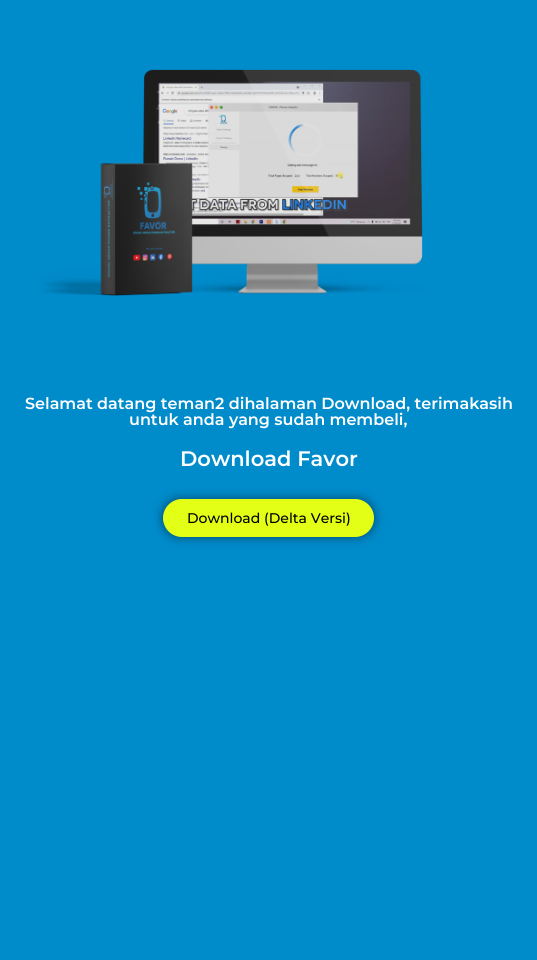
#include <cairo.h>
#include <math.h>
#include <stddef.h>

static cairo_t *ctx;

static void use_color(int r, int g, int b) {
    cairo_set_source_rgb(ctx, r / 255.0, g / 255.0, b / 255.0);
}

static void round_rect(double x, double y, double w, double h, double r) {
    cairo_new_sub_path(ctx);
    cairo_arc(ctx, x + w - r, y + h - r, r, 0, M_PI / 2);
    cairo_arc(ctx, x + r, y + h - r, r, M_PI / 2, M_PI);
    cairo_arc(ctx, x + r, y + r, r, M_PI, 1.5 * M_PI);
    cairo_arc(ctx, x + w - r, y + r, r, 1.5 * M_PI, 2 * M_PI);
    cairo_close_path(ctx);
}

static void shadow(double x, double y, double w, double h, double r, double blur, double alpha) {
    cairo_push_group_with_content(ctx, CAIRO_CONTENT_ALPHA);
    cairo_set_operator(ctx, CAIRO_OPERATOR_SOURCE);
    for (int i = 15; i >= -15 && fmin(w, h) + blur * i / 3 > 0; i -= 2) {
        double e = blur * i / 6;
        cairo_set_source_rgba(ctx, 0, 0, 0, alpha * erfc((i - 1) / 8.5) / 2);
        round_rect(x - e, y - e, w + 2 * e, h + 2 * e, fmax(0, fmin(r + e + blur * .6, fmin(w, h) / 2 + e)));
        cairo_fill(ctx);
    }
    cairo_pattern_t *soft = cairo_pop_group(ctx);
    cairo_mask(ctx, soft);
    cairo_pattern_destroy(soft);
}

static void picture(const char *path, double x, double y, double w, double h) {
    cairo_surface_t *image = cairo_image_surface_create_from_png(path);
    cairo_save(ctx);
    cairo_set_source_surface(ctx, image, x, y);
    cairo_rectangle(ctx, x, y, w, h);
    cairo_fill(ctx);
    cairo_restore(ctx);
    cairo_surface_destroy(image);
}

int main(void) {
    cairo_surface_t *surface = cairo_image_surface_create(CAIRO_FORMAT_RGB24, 537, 960);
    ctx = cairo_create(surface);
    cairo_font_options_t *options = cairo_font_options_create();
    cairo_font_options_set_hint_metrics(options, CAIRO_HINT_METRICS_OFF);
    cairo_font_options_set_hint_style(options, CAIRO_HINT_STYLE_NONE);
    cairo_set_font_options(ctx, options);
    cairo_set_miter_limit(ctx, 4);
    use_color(0, 139, 203);
    cairo_paint(ctx);
    picture("img1.png", 41, 69, 382, 227);
    cairo_select_font_face(ctx, "Montserrat SemiBold", CAIRO_FONT_SLANT_NORMAL, CAIRO_FONT_WEIGHT_NORMAL);
    cairo_set_font_size(ctx, 16);
    use_color(255, 255, 255);
    cairo_move_to(ctx, 25, 409);
    cairo_show_text(ctx, "Selamat datang teman2 dihalaman Download, terimakasih");
    cairo_move_to(ctx, 129, 425);
    cairo_show_text(ctx, "untuk anda yang sudah membeli,");
    cairo_set_font_size(ctx, 21);
    cairo_move_to(ctx, 180, 466);
    cairo_show_text(ctx, "Download Favor");
    use_color(0, 0, 0);
    shadow(163, 499, 211, 38, 19, 5, 0.5);
    use_color(227, 255, 22);
    round_rect(163, 499, 211, 38, 19);
    cairo_fill(ctx);
    cairo_select_font_face(ctx, "Montserrat Medium", CAIRO_FONT_SLANT_NORMAL, CAIRO_FONT_WEIGHT_NORMAL);
    cairo_set_font_size(ctx, 14);
    use_color(0, 0, 0);
    cairo_move_to(ctx, 187, 523);
    cairo_show_text(ctx, "Download (Delta Versi)");
    cairo_surface_write_to_png(surface, "result.png");
    cairo_font_options_destroy(options);
    cairo_destroy(ctx);
    cairo_surface_destroy(surface);
    return 0;
}
